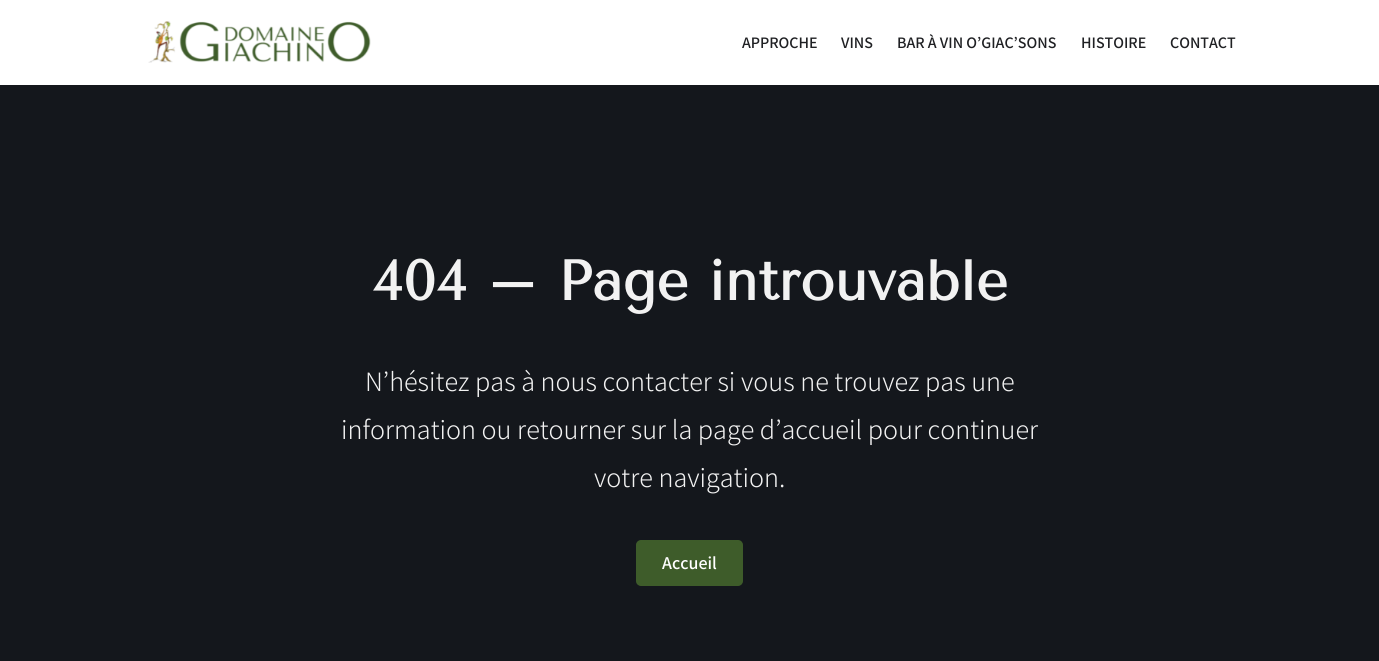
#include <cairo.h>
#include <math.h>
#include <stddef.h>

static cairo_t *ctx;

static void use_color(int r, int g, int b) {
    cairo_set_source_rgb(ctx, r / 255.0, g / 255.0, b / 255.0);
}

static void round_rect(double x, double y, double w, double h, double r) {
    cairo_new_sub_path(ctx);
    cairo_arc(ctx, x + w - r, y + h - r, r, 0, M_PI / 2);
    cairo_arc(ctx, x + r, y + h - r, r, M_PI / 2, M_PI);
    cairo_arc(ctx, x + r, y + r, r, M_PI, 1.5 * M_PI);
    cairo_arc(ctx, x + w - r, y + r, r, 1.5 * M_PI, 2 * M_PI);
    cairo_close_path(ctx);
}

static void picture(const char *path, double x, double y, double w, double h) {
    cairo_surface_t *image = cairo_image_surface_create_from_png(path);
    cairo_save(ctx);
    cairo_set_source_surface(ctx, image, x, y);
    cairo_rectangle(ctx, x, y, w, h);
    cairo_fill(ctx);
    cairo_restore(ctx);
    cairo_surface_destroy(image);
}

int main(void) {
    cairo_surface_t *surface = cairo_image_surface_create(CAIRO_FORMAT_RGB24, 1379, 661);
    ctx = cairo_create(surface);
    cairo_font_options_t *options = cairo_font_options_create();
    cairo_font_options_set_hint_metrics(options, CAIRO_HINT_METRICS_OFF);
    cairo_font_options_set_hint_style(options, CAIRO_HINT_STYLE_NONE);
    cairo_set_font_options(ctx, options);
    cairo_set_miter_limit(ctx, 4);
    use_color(255, 255, 255);
    cairo_paint(ctx);
    picture("img1.png", 148, 21, 223, 42);
    cairo_select_font_face(ctx, "Assistant SemiBold", CAIRO_FONT_SLANT_NORMAL, CAIRO_FONT_WEIGHT_NORMAL);
    cairo_set_font_size(ctx, 16);
    use_color(31, 32, 35);
    cairo_move_to(ctx, 742, 48);
    cairo_show_text(ctx, "APPROCHE");
    cairo_move_to(ctx, 841, 48);
    cairo_show_text(ctx, "VINS");
    cairo_move_to(ctx, 897, 48);
    cairo_show_text(ctx, "BAR À VIN O’GIAC’SONS");
    cairo_move_to(ctx, 1081, 48);
    cairo_show_text(ctx, "HISTOIRE");
    cairo_move_to(ctx, 1170, 48);
    cairo_show_text(ctx, "CONTACT");
    use_color(20, 23, 28);
    cairo_rectangle(ctx, 0, 85, 1379, 576);
    cairo_fill(ctx);
    cairo_select_font_face(ctx, "Tenor Sans", CAIRO_FONT_SLANT_NORMAL, CAIRO_FONT_WEIGHT_BOLD);
    cairo_set_font_size(ctx, 56);
    use_color(242, 242, 242);
    cairo_move_to(ctx, 372, 300);
    cairo_show_text(ctx, "404 – Page introuvable");
    cairo_select_font_face(ctx, "Assistant Light", CAIRO_FONT_SLANT_NORMAL, CAIRO_FONT_WEIGHT_NORMAL);
    cairo_set_font_size(ctx, 28);
    cairo_move_to(ctx, 365, 391);
    cairo_show_text(ctx, "N’hésitez pas à nous contacter si vous ne trouvez pas une");
    cairo_move_to(ctx, 341, 439);
    cairo_show_text(ctx, "information ou retourner sur la page d’accueil pour continuer");
    cairo_move_to(ctx, 594, 487);
    cairo_show_text(ctx, "votre navigation.");
    use_color(62, 92, 42);
    round_rect(637, 541, 105, 44, 4);
    cairo_fill_preserve(ctx);
    cairo_stroke(ctx);
    cairo_select_font_face(ctx, "Assistant SemiBold", CAIRO_FONT_SLANT_NORMAL, CAIRO_FONT_WEIGHT_NORMAL);
    cairo_set_font_size(ctx, 18);
    use_color(255, 255, 255);
    cairo_move_to(ctx, 662, 569);
    cairo_show_text(ctx, "Accueil");
    cairo_surface_write_to_png(surface, "result.png");
    cairo_font_options_destroy(options);
    cairo_destroy(ctx);
    cairo_surface_destroy(surface);
    return 0;
}
